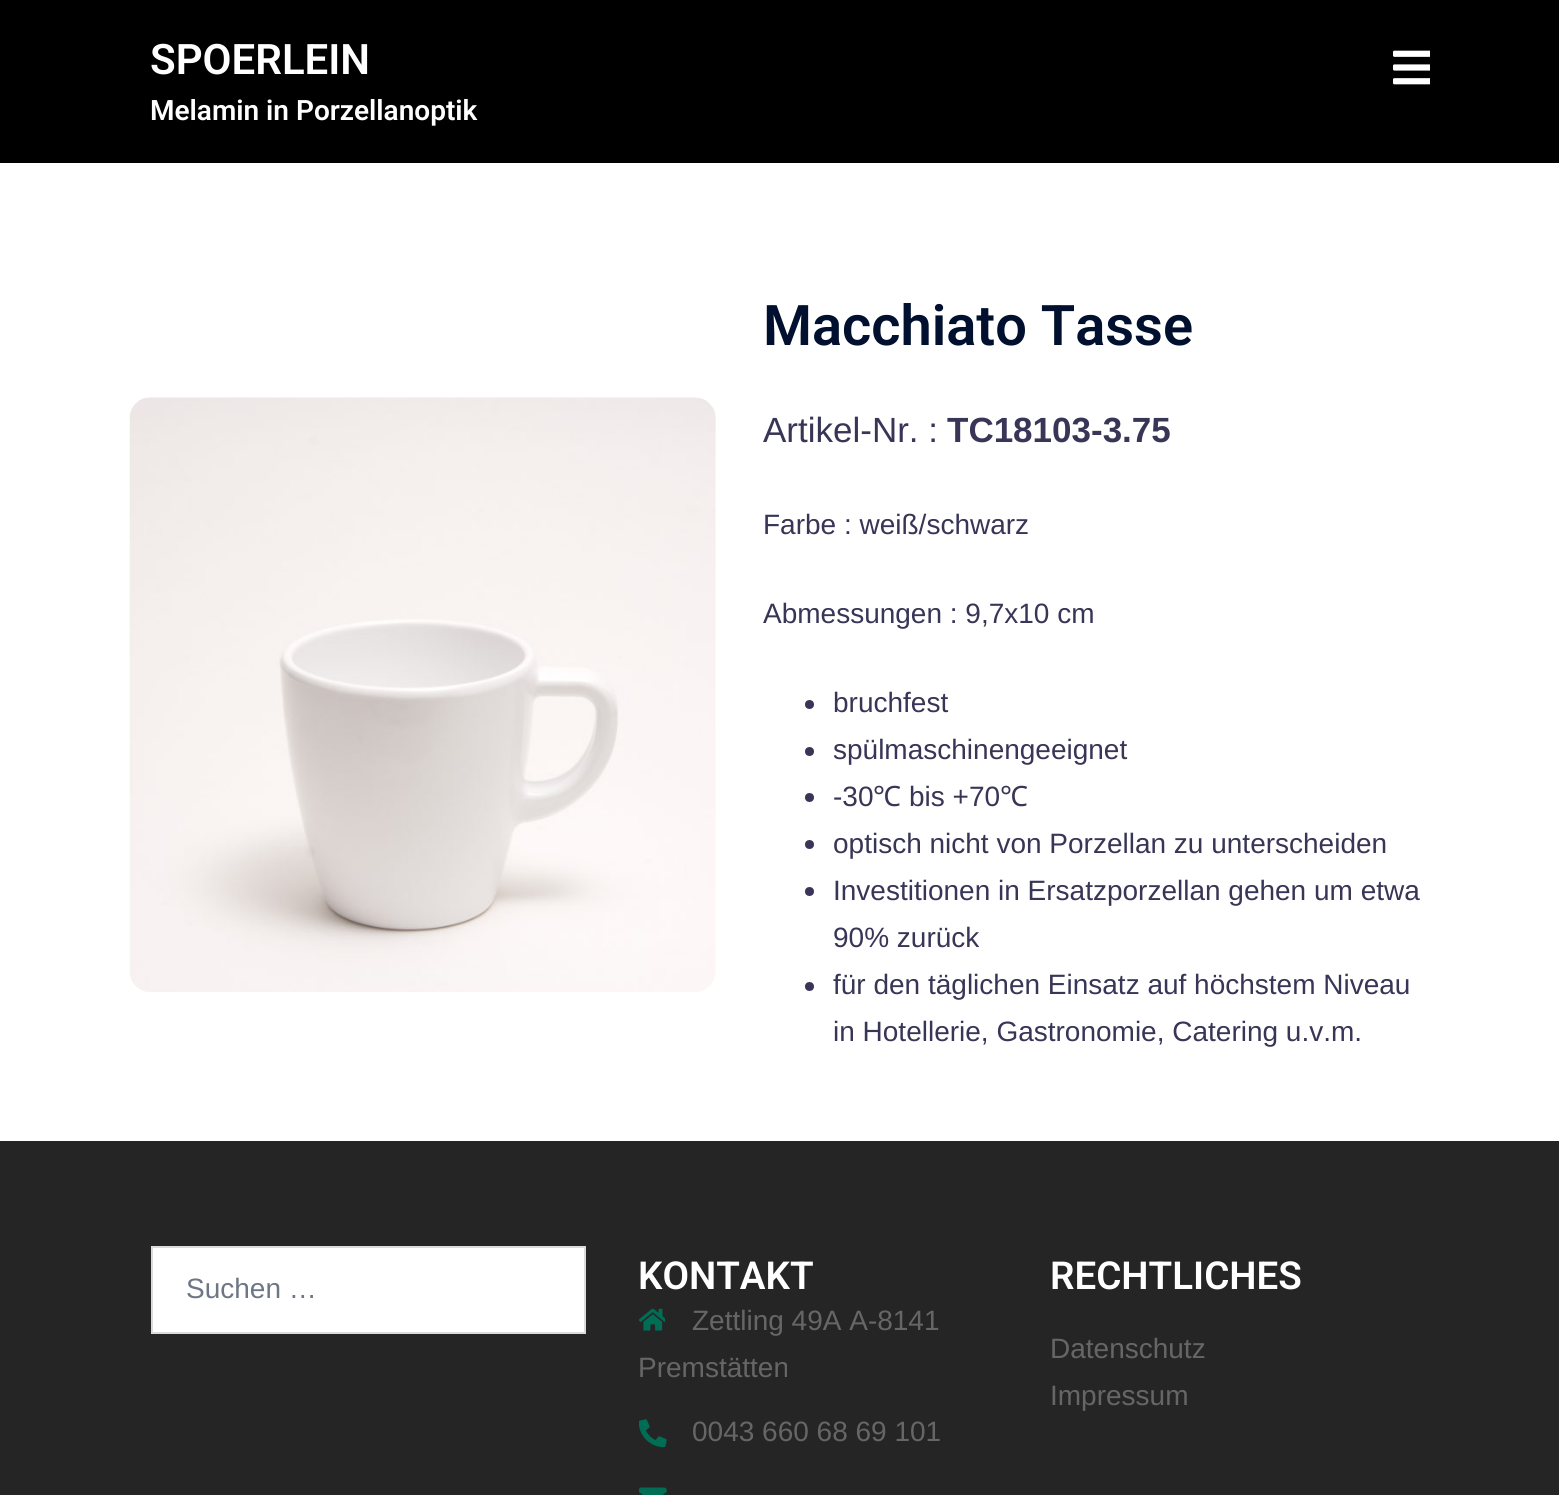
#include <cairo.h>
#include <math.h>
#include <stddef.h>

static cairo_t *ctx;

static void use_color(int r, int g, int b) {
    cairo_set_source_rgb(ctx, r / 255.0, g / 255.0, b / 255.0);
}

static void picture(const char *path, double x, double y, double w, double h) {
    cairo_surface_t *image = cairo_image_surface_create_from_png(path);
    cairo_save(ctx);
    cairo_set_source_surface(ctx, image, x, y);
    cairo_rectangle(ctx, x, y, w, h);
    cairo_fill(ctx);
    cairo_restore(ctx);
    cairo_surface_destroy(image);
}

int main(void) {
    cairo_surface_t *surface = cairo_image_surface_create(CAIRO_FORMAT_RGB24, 1559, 1495);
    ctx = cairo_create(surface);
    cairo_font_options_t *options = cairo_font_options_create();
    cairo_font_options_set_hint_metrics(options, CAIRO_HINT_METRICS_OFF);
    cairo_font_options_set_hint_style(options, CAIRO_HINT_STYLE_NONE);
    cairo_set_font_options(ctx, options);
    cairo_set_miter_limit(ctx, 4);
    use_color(255, 255, 255);
    cairo_paint(ctx);
    use_color(0, 0, 0);
    cairo_rectangle(ctx, 0, 0, 1559, 163);
    cairo_fill(ctx);
    cairo_select_font_face(ctx, "Roboto SemiBold", CAIRO_FONT_SLANT_NORMAL, CAIRO_FONT_WEIGHT_NORMAL);
    cairo_set_font_size(ctx, 42);
    use_color(255, 255, 255);
    cairo_move_to(ctx, 150, 74);
    cairo_show_text(ctx, "SPOERLEIN");
    cairo_set_font_size(ctx, 28);
    cairo_move_to(ctx, 150, 120);
    cairo_show_text(ctx, "Melamin in Porzellanoptik");
    picture("img1.png", 1393, 50, 37, 35);
    picture("img2.png", 129, 397, 587, 595);
    cairo_set_font_size(ctx, 56);
    use_color(0, 16, 46);
    cairo_move_to(ctx, 763, 345);
    cairo_show_text(ctx, "Macchiato Tasse");
    cairo_select_font_face(ctx, "Liberation Sans", CAIRO_FONT_SLANT_NORMAL, CAIRO_FONT_WEIGHT_NORMAL);
    cairo_set_font_size(ctx, 35);
    use_color(56, 53, 86);
    cairo_move_to(ctx, 763, 442);
    cairo_show_text(ctx, "Artikel-Nr. :");
    cairo_select_font_face(ctx, "Liberation Sans", CAIRO_FONT_SLANT_NORMAL, CAIRO_FONT_WEIGHT_BOLD);
    cairo_move_to(ctx, 947, 442);
    cairo_show_text(ctx, "TC18103-3.75");
    cairo_select_font_face(ctx, "Liberation Sans", CAIRO_FONT_SLANT_NORMAL, CAIRO_FONT_WEIGHT_NORMAL);
    cairo_set_font_size(ctx, 28);
    cairo_move_to(ctx, 763, 534);
    cairo_show_text(ctx, "Farbe : weiß/schwarz");
    cairo_move_to(ctx, 763, 623);
    cairo_show_text(ctx, "Abmessungen : 9,7x10 cm");
    cairo_new_path(ctx);
    cairo_arc(ctx, 809.5, 704.5, 4.5, 0, 2 * M_PI);
    cairo_fill(ctx);
    cairo_move_to(ctx, 833, 712);
    cairo_show_text(ctx, "bruchfest");
    cairo_new_path(ctx);
    cairo_arc(ctx, 809.5, 751.5, 4.5, 0, 2 * M_PI);
    cairo_fill(ctx);
    cairo_move_to(ctx, 833, 759);
    cairo_show_text(ctx, "spülmaschinengeeignet");
    cairo_new_path(ctx);
    cairo_arc(ctx, 809.5, 797.5, 4.5, 0, 2 * M_PI);
    cairo_fill(ctx);
    cairo_move_to(ctx, 833, 806);
    cairo_show_text(ctx, "-30");
    cairo_select_font_face(ctx, "Noto Sans", CAIRO_FONT_SLANT_NORMAL, CAIRO_FONT_WEIGHT_NORMAL);
    cairo_move_to(ctx, 873, 806);
    cairo_show_text(ctx, "℃");
    cairo_select_font_face(ctx, "Liberation Sans", CAIRO_FONT_SLANT_NORMAL, CAIRO_FONT_WEIGHT_NORMAL);
    cairo_move_to(ctx, 909, 806);
    cairo_show_text(ctx, "bis +70");
    cairo_select_font_face(ctx, "Noto Sans", CAIRO_FONT_SLANT_NORMAL, CAIRO_FONT_WEIGHT_NORMAL);
    cairo_move_to(ctx, 1000, 806);
    cairo_show_text(ctx, "℃");
    cairo_new_path(ctx);
    cairo_arc(ctx, 809.5, 844.5, 4.5, 0, 2 * M_PI);
    cairo_fill(ctx);
    cairo_select_font_face(ctx, "Liberation Sans", CAIRO_FONT_SLANT_NORMAL, CAIRO_FONT_WEIGHT_NORMAL);
    cairo_move_to(ctx, 833, 853);
    cairo_show_text(ctx, "optisch nicht von Porzellan zu unterscheiden");
    cairo_new_path(ctx);
    cairo_arc(ctx, 809.5, 891.5, 4.5, 0, 2 * M_PI);
    cairo_fill(ctx);
    cairo_move_to(ctx, 833, 900);
    cairo_show_text(ctx, "Investitionen in Ersatzporzellan gehen um etwa");
    cairo_move_to(ctx, 833, 947);
    cairo_show_text(ctx, "90% zurück");
    cairo_new_path(ctx);
    cairo_arc(ctx, 809.5, 986.5, 4.5, 0, 2 * M_PI);
    cairo_fill(ctx);
    cairo_move_to(ctx, 833, 994);
    cairo_show_text(ctx, "für den täglichen Einsatz auf höchstem Niveau");
    cairo_move_to(ctx, 833, 1041);
    cairo_show_text(ctx, "in Hotellerie, Gastronomie, Catering u.v.m.");
    use_color(37, 37, 37);
    cairo_rectangle(ctx, 0, 1141, 1559, 354);
    cairo_fill(ctx);
    use_color(255, 255, 255);
    cairo_rectangle(ctx, 152, 1247, 433, 86);
    cairo_fill_preserve(ctx);
    use_color(219, 219, 219);
    cairo_stroke(ctx);
    use_color(109, 118, 133);
    cairo_move_to(ctx, 186, 1298);
    cairo_show_text(ctx, "Suchen …");
    cairo_select_font_face(ctx, "Roboto SemiBold", CAIRO_FONT_SLANT_NORMAL, CAIRO_FONT_WEIGHT_NORMAL);
    cairo_set_font_size(ctx, 38.5);
    use_color(255, 255, 255);
    cairo_move_to(ctx, 638, 1289);
    cairo_show_text(ctx, "KONTAKT");
    picture("img3.png", 639, 1308, 26, 23);
    cairo_select_font_face(ctx, "Liberation Sans", CAIRO_FONT_SLANT_NORMAL, CAIRO_FONT_WEIGHT_NORMAL);
    cairo_set_font_size(ctx, 28);
    use_color(102, 102, 102);
    cairo_move_to(ctx, 692, 1330);
    cairo_show_text(ctx, "Zettling 49A A-8141");
    cairo_move_to(ctx, 638, 1377);
    cairo_show_text(ctx, "Premstätten");
    picture("img4.png", 639, 1419, 28, 28);
    cairo_move_to(ctx, 692, 1441);
    cairo_show_text(ctx, "0043 660 68 69 101");
    picture("img5.png", 639, 1487, 28, 8);
    cairo_select_font_face(ctx, "Roboto SemiBold", CAIRO_FONT_SLANT_NORMAL, CAIRO_FONT_WEIGHT_NORMAL);
    cairo_set_font_size(ctx, 38.5);
    use_color(255, 255, 255);
    cairo_move_to(ctx, 1050, 1289);
    cairo_show_text(ctx, "RECHTLICHES");
    cairo_select_font_face(ctx, "Liberation Sans", CAIRO_FONT_SLANT_NORMAL, CAIRO_FONT_WEIGHT_NORMAL);
    cairo_set_font_size(ctx, 28);
    use_color(102, 102, 102);
    cairo_move_to(ctx, 1050, 1358);
    cairo_show_text(ctx, "Datenschutz");
    cairo_move_to(ctx, 1050, 1405);
    cairo_show_text(ctx, "Impressum");
    cairo_surface_write_to_png(surface, "result.png");
    cairo_font_options_destroy(options);
    cairo_destroy(ctx);
    cairo_surface_destroy(surface);
    return 0;
}
